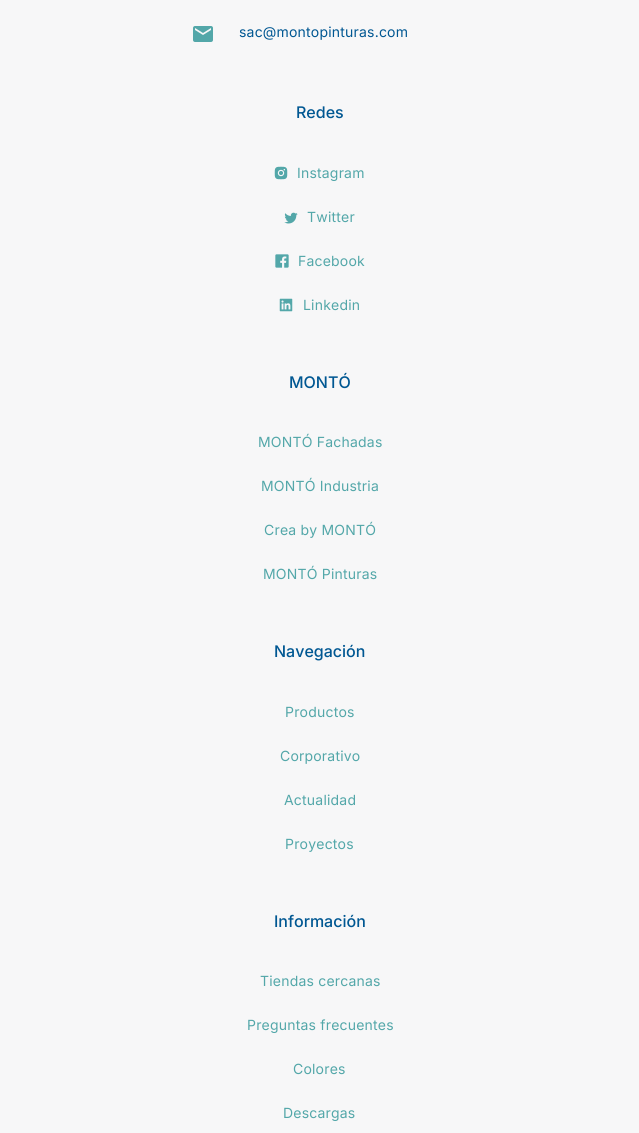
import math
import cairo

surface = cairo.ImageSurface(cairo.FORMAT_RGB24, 639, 1133)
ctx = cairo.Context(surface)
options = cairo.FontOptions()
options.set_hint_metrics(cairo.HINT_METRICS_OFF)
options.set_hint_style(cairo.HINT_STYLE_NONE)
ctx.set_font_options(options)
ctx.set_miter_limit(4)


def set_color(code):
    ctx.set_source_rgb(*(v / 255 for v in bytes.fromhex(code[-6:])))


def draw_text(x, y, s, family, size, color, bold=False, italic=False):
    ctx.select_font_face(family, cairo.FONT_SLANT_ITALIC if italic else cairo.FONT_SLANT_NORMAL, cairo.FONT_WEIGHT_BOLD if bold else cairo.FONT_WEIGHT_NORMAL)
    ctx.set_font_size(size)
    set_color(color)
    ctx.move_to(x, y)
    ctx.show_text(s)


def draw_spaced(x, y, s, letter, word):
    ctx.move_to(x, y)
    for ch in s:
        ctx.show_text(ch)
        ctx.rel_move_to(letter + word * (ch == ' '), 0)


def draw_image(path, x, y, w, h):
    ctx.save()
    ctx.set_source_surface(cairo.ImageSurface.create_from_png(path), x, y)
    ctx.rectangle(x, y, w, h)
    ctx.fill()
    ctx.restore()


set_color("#f7f7f8")
ctx.paint()
draw_image("assets/img1.png", 193, 26, 20, 16)
ctx.select_font_face("Inter")
ctx.set_font_size(14)
set_color("#005792")
draw_spaced(239, 37, "sac@montopinturas.com", 0.2, 0)
draw_text(296, 118, "Redes", "Inter Medium", 16, "#005792")
draw_image("assets/img2.png", 274, 166, 14, 14)
ctx.select_font_face("Inter")
ctx.set_font_size(14)
set_color("#53a7a9")
draw_spaced(297, 178, "Instagram", 0.2, 0)
draw_image("assets/img3.png", 284, 212, 14, 12)
draw_spaced(307, 222, "Twitter", 0.2, 0)
draw_image("assets/img4.png", 275, 254, 14, 14)
draw_spaced(298, 266, "Facebook", 0.2, 0)
draw_image("assets/img5.png", 279, 298, 14, 14)
draw_spaced(303, 310, "Linkedin", 0.2, 0)
draw_text(289, 388, "MONTÓ", "Inter Medium", 16, "#005792")
ctx.select_font_face("Inter")
ctx.set_font_size(14)
set_color("#53a7a9")
draw_spaced(258, 447, "MONTÓ Fachadas", 0.2, 0)
draw_spaced(261, 491, "MONTÓ Industria", 0.2, 0)
draw_spaced(264, 535, "Crea by MONTÓ", 0.2, 0)
draw_spaced(263, 579, "MONTÓ Pinturas", 0.2, 0)
draw_text(274, 657, "Navegación", "Inter Medium", 16, "#005792")
ctx.select_font_face("Inter")
ctx.set_font_size(14)
set_color("#53a7a9")
draw_spaced(285, 717, "Productos", 0.2, 0)
draw_spaced(280, 761, "Corporativo", 0.2, 0)
draw_spaced(284, 805, "Actualidad", 0.2, 0)
draw_spaced(285, 849, "Proyectos", 0.2, 0)
draw_text(274, 927, "Información", "Inter Medium", 16, "#005792")
ctx.select_font_face("Inter")
ctx.set_font_size(14)
set_color("#53a7a9")
draw_spaced(260, 986, "Tiendas cercanas", 0.2, 0)
draw_spaced(247, 1030, "Preguntas frecuentes", 0.2, 0)
draw_spaced(293, 1074, "Colores", 0.2, 0)
draw_spaced(283, 1118, "Descargas", 0.2, 0)
surface.write_to_png("output.png")
